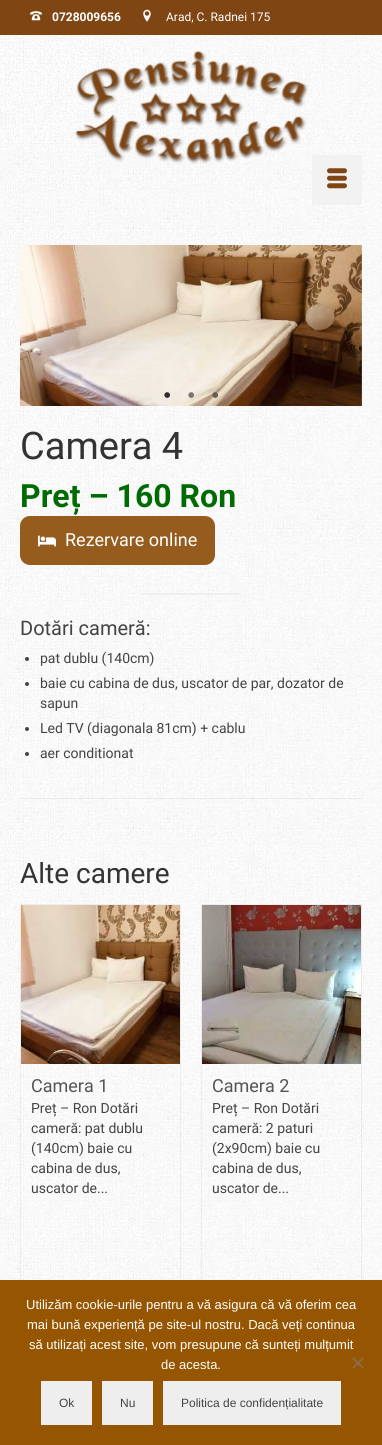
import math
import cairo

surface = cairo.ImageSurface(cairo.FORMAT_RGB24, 382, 1445)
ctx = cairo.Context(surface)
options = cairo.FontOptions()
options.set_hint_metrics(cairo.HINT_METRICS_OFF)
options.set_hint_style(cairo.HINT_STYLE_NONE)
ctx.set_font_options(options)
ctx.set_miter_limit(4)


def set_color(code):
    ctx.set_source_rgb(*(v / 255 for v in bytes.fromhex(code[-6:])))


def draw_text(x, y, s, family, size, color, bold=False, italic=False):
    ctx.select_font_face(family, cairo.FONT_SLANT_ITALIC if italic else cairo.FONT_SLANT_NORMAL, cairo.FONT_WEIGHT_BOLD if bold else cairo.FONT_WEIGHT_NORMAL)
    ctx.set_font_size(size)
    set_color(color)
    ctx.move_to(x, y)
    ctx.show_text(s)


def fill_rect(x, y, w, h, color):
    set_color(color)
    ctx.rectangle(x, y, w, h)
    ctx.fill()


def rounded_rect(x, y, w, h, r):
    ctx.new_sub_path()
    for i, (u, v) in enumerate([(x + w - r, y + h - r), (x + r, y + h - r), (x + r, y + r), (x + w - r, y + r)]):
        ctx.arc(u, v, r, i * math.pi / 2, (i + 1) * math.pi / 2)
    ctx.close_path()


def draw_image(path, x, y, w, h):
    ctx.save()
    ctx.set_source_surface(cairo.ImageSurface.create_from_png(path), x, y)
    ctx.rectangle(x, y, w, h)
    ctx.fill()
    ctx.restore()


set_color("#ffffff")
ctx.paint()
draw_image("assets/img1.png", 0, 35, 382, 170)
fill_rect(0, 0, 382, 35, "#7f4513")
draw_image("assets/img2.png", 30, 11, 12, 10)
draw_text(52, 21, "0728009656", "Roboto", 12, "#ffffff", bold=True)
draw_image("assets/img3.png", 143, 9, 8, 13)
draw_text(166, 21, "Arad, C. Radnei 175", "Roboto", 12, "#ffffff")
draw_image("assets/img4.png", 75, 51, 233, 113)
fill_rect(312, 155, 50, 50, "#f2f2f2")
draw_image("assets/img5.png", 327, 168, 20, 21)
draw_image("assets/img6.png", 0, 205, 382, 1075)
draw_image("assets/img7.png", 20, 245, 342, 161)
draw_text(163, 403, "•", "Liberation Serif", 24, "#312f2d")
draw_text(187, 403, "•", "Liberation Serif", 24, "#7a7570")
draw_text(211, 403, "•", "Liberation Serif", 24, "#665c50")
draw_text(20, 459, "Camera 4", "Roboto", 38, "#333333")
draw_text(20, 507, "Preț – 160 Ron", "Roboto", 32, "#006b02", bold=True)
set_color("#965c1e")
rounded_rect(21, 517, 193, 47, 9)
ctx.fill_preserve()
ctx.stroke()
draw_image("assets/img8.png", 38, 535, 18, 12)
draw_text(65, 546, "Rezervare online", "Roboto", 18, "#ffffff")
fill_rect(141, 593, 100, 2, "#eeeeee")
draw_text(20, 635, "Dotări cameră:", "Roboto", 20, "#444444")
ctx.new_path()
ctx.arc(27, 659, 2, 0, 2 * math.pi)
ctx.fill()
draw_text(40, 663, "pat dublu (140cm)", "Roboto", 14, "#444444")
ctx.new_path()
ctx.arc(27, 684, 2, 0, 2 * math.pi)
ctx.fill()
draw_text(40, 688, "baie cu cabina de dus, uscator de par, dozator de", "Roboto", 14, "#444444")
draw_text(40, 708, "sapun", "Roboto", 14, "#444444")
ctx.new_path()
ctx.arc(27, 729, 2, 0, 2 * math.pi)
ctx.fill()
draw_text(40, 733, "Led TV (diagonala 81cm) + cablu", "Roboto", 14, "#444444")
ctx.new_path()
ctx.arc(27, 754, 2, 0, 2 * math.pi)
ctx.fill()
draw_text(40, 758, "aer conditionat", "Roboto", 14, "#444444")
ctx.set_source_rgba(0, 0, 0, 0.05)
ctx.rectangle(20, 798, 342, 1)
ctx.fill()
draw_text(20, 883, "Alte camere", "Roboto", 28, "#333333")
ctx.rectangle(20.5, 904.5, 160, 409)
ctx.set_source_rgba(0, 0, 0, 0.05)
ctx.set_line_width(1)
ctx.stroke()
draw_image("assets/img9.png", 21, 905, 159, 159)
draw_text(31, 1092, "Camera 1", "Roboto", 18, "#555555")
draw_text(31, 1113, "Preț – Ron Dotări", "Roboto", 14, "#444444")
draw_text(31, 1133, "cameră: pat dublu", "Roboto", 14, "#444444")
draw_text(31, 1153, "(140cm) baie cu", "Roboto", 14, "#444444")
draw_text(31, 1173, "cabina de dus,", "Roboto", 14, "#444444")
draw_text(31, 1193, "uscator de...", "Roboto", 14, "#444444")
ctx.rectangle(201.5, 904.5, 160, 409)
ctx.set_source_rgba(0, 0, 0, 0.05)
ctx.stroke()
draw_image("assets/img10.png", 202, 905, 159, 159)
draw_text(212, 1092, "Camera 2", "Roboto", 18, "#555555")
draw_text(212, 1113, "Preț – Ron Dotări", "Roboto", 14, "#444444")
draw_text(212, 1133, "cameră: 2 paturi", "Roboto", 14, "#444444")
draw_text(212, 1153, "(2x90cm) baie cu", "Roboto", 14, "#444444")
draw_text(212, 1173, "cabina de dus,", "Roboto", 14, "#444444")
draw_text(212, 1193, "uscator de...", "Roboto", 14, "#444444")
fill_rect(0, 1280, 382, 165, "#965500")
draw_text(26, 1309, "Utilizăm cookie-urile pentru a vă asigura că vă oferim cea", "Liberation Sans", 13, "#ffffff")
draw_text(27, 1329, "mai bună experiență pe site-ul nostru. Dacă veți continua", "Liberation Sans", 13, "#ffffff")
draw_text(29, 1349, "să utilizați acest site, vom presupune că sunteți mulțumit", "Liberation Sans", 13, "#ffffff")
draw_text(161, 1369, "de acesta.", "Liberation Sans", 13, "#ffffff")
set_color("#8b6b40")
ctx.new_path()
ctx.move_to(362.5, 1357)
ctx.line_to(364, 1358.5)
ctx.line_to(353.5, 1369)
ctx.line_to(352, 1367.5)
ctx.close_path()
ctx.fill()
ctx.new_path()
ctx.move_to(352, 1358.5)
ctx.line_to(353.5, 1357)
ctx.line_to(364, 1367.5)
ctx.line_to(362.5, 1369)
ctx.close_path()
ctx.fill()
fill_rect(41, 1381, 51, 44, "#eeeeee")
draw_text(59, 1407, "Ok", "Liberation Sans", 12, "#444444")
fill_rect(102, 1381, 51, 44, "#eeeeee")
draw_text(120, 1407, "Nu", "Liberation Sans", 12, "#444444")
fill_rect(163, 1381, 178, 44, "#eeeeee")
draw_text(181, 1407, "Politica de confidențialitate", "Liberation Sans", 12, "#444444")
surface.write_to_png("output.png")
